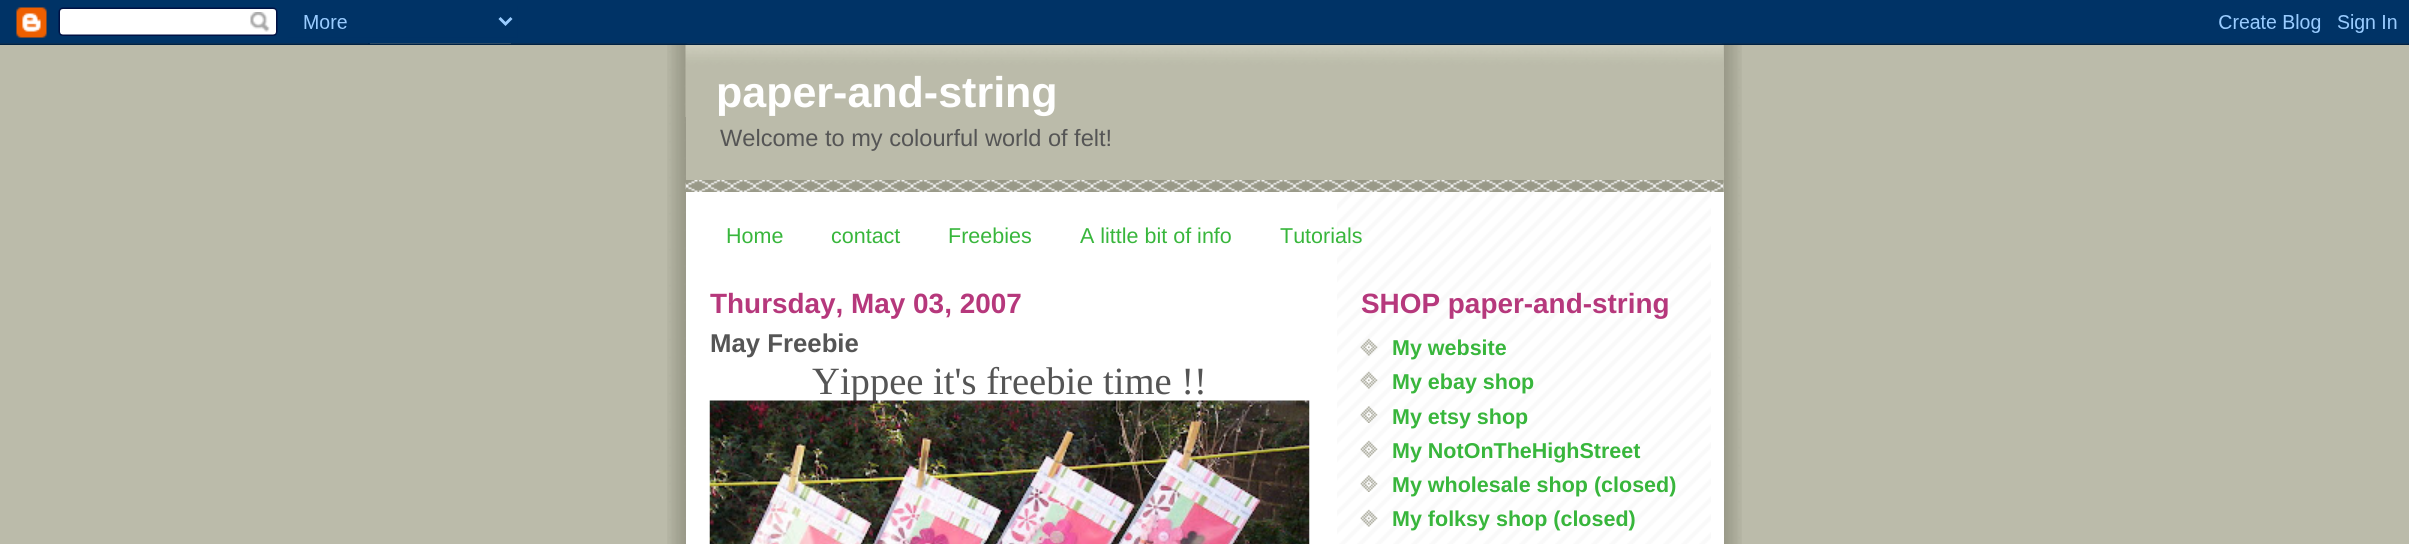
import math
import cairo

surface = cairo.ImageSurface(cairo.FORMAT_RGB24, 2409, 544)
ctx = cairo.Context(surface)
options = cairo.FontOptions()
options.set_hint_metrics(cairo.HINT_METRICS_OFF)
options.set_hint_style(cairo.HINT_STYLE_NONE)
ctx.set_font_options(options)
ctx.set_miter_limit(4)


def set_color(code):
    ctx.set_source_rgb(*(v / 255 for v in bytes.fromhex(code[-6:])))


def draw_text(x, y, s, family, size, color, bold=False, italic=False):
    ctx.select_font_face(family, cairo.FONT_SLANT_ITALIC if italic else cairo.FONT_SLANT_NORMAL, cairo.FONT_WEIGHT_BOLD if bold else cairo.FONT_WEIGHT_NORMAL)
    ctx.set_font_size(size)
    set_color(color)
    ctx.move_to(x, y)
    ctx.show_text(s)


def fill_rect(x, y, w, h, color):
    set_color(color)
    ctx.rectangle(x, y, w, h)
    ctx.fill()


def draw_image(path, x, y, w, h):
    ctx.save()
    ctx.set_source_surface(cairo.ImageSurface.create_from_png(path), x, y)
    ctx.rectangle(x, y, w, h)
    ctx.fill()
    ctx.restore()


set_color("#bbbbaa")
ctx.paint()
draw_image("assets/img1.png", 667, 43, 1075, 501)
draw_image("assets/img2.png", 0, 0, 2409, 45)
fill_rect(686, 192, 1038, 352, "#ffffff")
draw_image("assets/img3.png", 1337, 192, 374, 352)
fill_rect(686, 45, 1038, 147, "#bbbbaa")
draw_image("assets/img4.png", 685, 180, 1039, 12)
draw_image("assets/img5.png", 685, 45, 1039, 72)
draw_text(716, 107, "paper-and-string", "Liberation Sans", 43, "#ffffff", bold=True)
draw_text(720, 146, "Welcome to my colourful world of felt!", "Liberation Sans", 23.6, "#555555")
draw_text(726, 243, "Home", "Liberation Sans", 21.5, "#38b63c")
draw_text(831, 243, "contact", "Liberation Sans", 21.5, "#38b63c")
draw_text(948, 243, "Freebies", "Liberation Sans", 21.5, "#38b63c")
draw_text(1080, 243, "A little bit of info", "Liberation Sans", 21.5, "#38b63c")
draw_text(1280, 243, "Tutorials", "Liberation Sans", 21.5, "#38b63c")
ctx.save()
ctx.rectangle(710, 269, 600, 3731)
ctx.clip()
draw_text(710, 313, "Thursday, May 03, 2007", "Liberation Sans", 27.9, "#b6387c", bold=True)
ctx.restore()
draw_text(710, 352, "May Freebie", "Liberation Sans", 25.75, "#555555", bold=True)
draw_text(812, 394, "Yippee it's freebie time !!", "Liberation Serif", 38.6, "#555555")
draw_image("assets/img6.png", 709, 400, 601, 144)
draw_text(1361, 313, "SHOP paper-and-string", "Liberation Sans", 27.9, "#b6387c", bold=True)
draw_image("assets/img7.png", 1360, 338, 18, 18)
draw_text(1392, 355, "My website", "Liberation Sans", 21.5, "#38b63c", bold=True)
draw_image("assets/img8.png", 1360, 371, 18, 18)
draw_text(1392, 389, "My ebay shop", "Liberation Sans", 21.5, "#38b63c", bold=True)
draw_image("assets/img9.png", 1360, 406, 18, 17)
draw_text(1392, 424, "My etsy shop", "Liberation Sans", 21.5, "#38b63c", bold=True)
draw_image("assets/img10.png", 1360, 440, 18, 18)
draw_text(1392, 458, "My NotOnTheHighStreet", "Liberation Sans", 21.5, "#38b63c", bold=True)
draw_image("assets/img11.png", 1360, 475, 18, 17)
draw_text(1392, 492, "My wholesale shop (closed)", "Liberation Sans", 21.5, "#38b63c", bold=True)
draw_image("assets/img12.png", 1360, 509, 18, 18)
draw_text(1392, 526, "My folksy shop (closed)", "Liberation Sans", 21.5, "#38b63c", bold=True)
surface.write_to_png("output.png")
